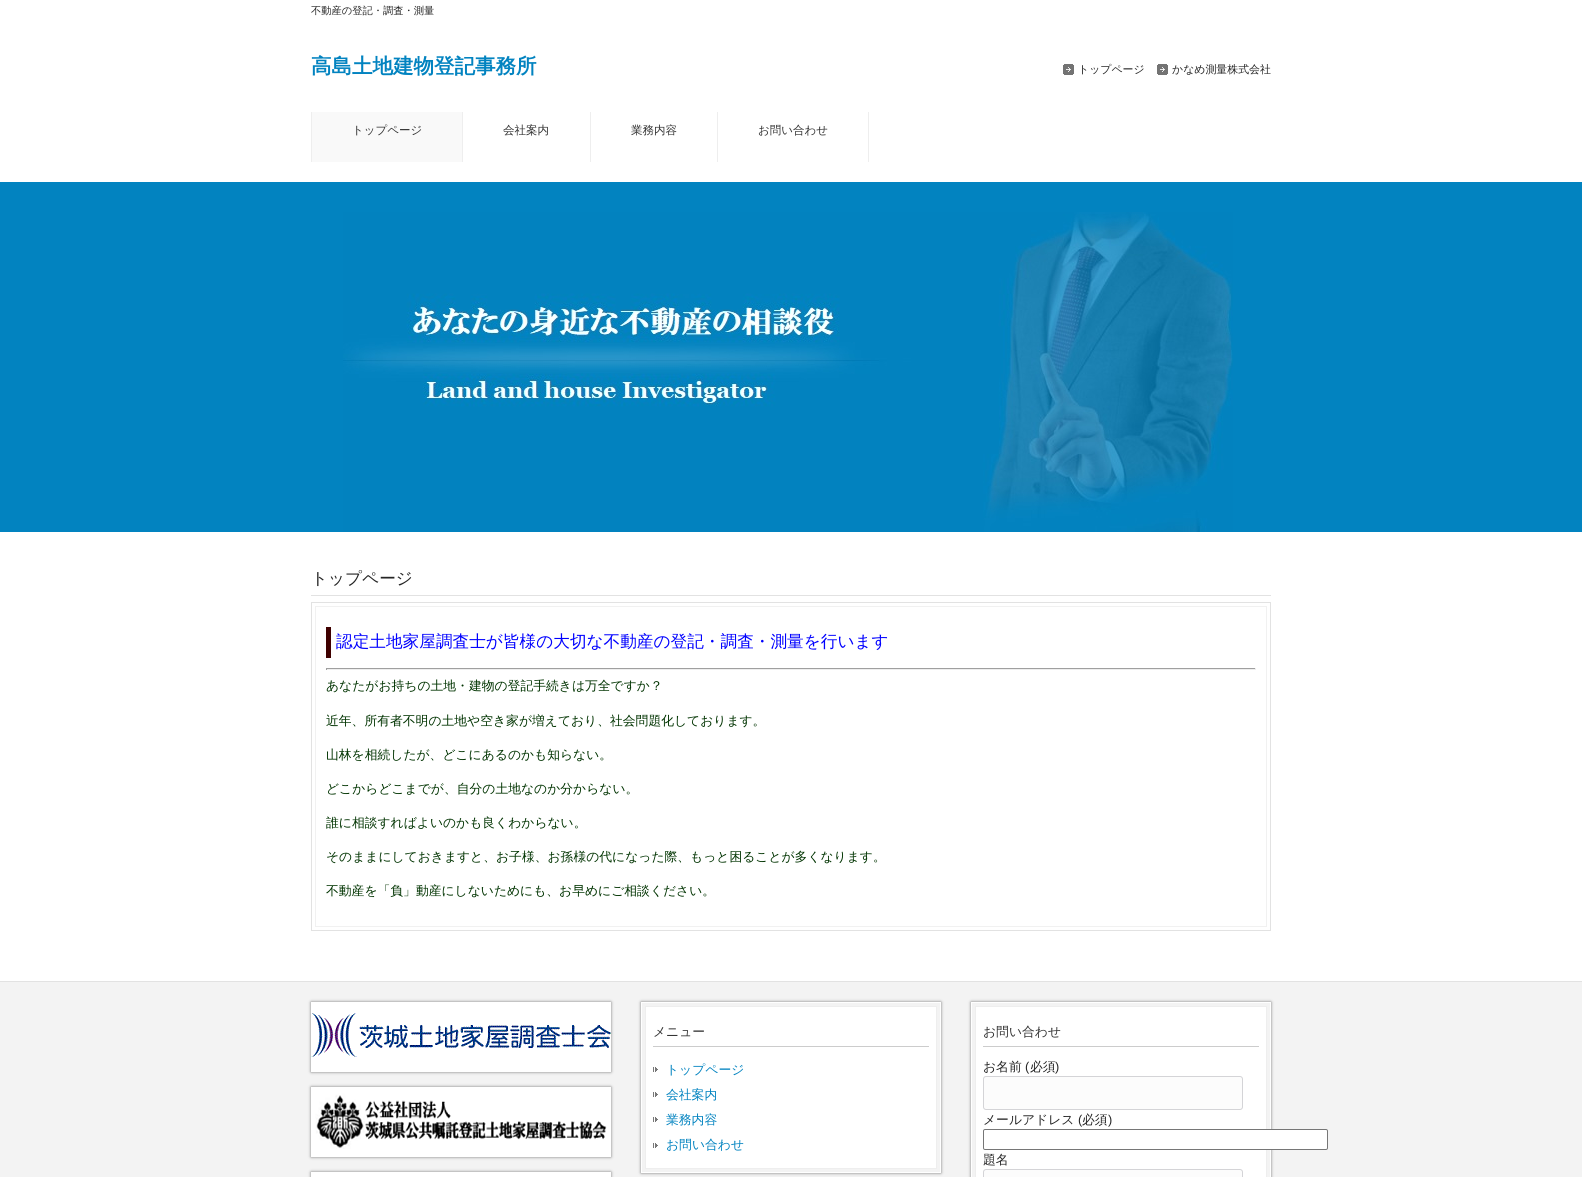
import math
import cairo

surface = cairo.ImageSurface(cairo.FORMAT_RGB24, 1582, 1177)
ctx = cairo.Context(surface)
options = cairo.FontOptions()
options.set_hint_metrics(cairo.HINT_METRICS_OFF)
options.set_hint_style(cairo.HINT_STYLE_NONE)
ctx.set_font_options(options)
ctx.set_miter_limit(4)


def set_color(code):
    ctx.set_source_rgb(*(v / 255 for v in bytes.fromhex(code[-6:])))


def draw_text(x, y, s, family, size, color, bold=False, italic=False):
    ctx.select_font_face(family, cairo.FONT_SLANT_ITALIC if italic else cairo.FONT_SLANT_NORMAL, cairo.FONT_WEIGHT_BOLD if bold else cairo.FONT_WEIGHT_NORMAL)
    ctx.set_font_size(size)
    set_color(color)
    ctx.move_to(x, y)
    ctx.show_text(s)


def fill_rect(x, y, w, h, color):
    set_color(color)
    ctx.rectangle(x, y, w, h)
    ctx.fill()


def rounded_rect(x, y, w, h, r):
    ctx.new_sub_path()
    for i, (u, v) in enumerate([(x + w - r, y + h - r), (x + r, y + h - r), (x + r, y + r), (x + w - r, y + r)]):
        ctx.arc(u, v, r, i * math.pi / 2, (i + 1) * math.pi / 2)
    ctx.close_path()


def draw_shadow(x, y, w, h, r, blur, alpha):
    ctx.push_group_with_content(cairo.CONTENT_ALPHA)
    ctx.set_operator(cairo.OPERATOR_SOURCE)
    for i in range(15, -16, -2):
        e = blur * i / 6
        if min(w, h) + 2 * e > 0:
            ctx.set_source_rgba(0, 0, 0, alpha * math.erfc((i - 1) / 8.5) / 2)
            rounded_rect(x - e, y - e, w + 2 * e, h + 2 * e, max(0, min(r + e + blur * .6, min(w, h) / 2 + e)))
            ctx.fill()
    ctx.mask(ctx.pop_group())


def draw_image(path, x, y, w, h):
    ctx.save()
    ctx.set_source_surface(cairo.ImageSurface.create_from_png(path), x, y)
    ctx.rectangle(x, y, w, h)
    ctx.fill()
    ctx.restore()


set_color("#ffffff")
ctx.paint()
draw_text(311, 14, "不動産の登記・調査・測量", "WenQuanYi Zen Hei Medium", 10.25, "#252525")
draw_text(311, 73, "高島土地建物登記事務所", "WenQuanYi Zen Hei", 20.5, "#0283c0", bold=True)
draw_image("assets/img1.png", 1063, 64, 11, 11)
draw_text(1078, 73, "トップページ", "WenQuanYi Zen Hei Medium", 10.9, "#252525")
draw_image("assets/img1.png", 1157, 64, 11, 11)
draw_text(1172, 73, "かなめ測量株式会社", "WenQuanYi Zen Hei Medium", 10.9, "#252525")
fill_rect(312, 112, 150, 50, "#f9f9f9")
fill_rect(462, 112, 1, 50, "#eeeeee")
fill_rect(311, 112, 1, 50, "#eeeeee")
draw_text(352, 134, "トップページ", "WenQuanYi Zen Hei Medium", 11.5, "#333333")
fill_rect(590, 112, 1, 50, "#eeeeee")
draw_text(503, 134, "会社案内", "WenQuanYi Zen Hei Medium", 11.5, "#333333")
fill_rect(717, 112, 1, 50, "#eeeeee")
draw_text(631, 134, "業務内容", "WenQuanYi Zen Hei Medium", 11.5, "#333333")
fill_rect(868, 112, 1, 50, "#eeeeee")
draw_text(758, 134, "お問い合わせ", "WenQuanYi Zen Hei Medium", 11.5, "#333333")
fill_rect(0, 182, 1582, 350, "#0283c0")
draw_image("assets/img2.png", 343, 212, 890, 320)
fill_rect(311, 595, 960, 1, "#e2e2e2")
draw_text(311, 584, "トップページ", "WenQuanYi Zen Hei Medium", 16.65, "#252525")
ctx.rectangle(311.5, 602.5, 959, 328)
set_color("#e2e2e2")
ctx.set_line_width(1)
ctx.stroke()
ctx.rectangle(315.5, 606.5, 951, 320)
set_color("#f1f1f1")
ctx.stroke()
fill_rect(326, 627, 5, 31, "#3f0000")
draw_text(336, 647, "認定土地家屋調査士が皆様の大切な不動産の登記・調査・測量を行います", "WenQuanYi Zen Hei Medium", 16.65, "#0000ff")
fill_rect(326, 668, 930, 1, "#9f9f9f")
fill_rect(1255, 668, 1, 2, "#eeeeee")
fill_rect(326, 669, 930, 1, "#eeeeee")
fill_rect(326, 668, 1, 2, "#9f9f9f")
draw_text(326, 690, "あなたがお持ちの土地・建物の登記手続きは万全ですか？", "WenQuanYi Zen Hei Medium", 12.8, "#003300")
draw_text(326, 725, "近年、所有者不明の土地や空き家が増えており、社会問題化しております。", "WenQuanYi Zen Hei Medium", 12.8, "#003300")
draw_text(326, 759, "山林を相続したが、どこにあるのかも知らない。", "WenQuanYi Zen Hei Medium", 12.8, "#003300")
draw_text(326, 793, "どこからどこまでが、自分の土地なのか分からない。", "WenQuanYi Zen Hei Medium", 12.8, "#003300")
draw_text(326, 827, "誰に相談すればよいのかも良くわからない。", "WenQuanYi Zen Hei Medium", 12.8, "#003300")
draw_text(326, 861, "そのままにしておきますと、お子様、お孫様の代になった際、もっと困ることが多くなります。", "WenQuanYi Zen Hei Medium", 12.8, "#003300")
draw_text(326, 895, "不動産を「負」動産にしないためにも、お早めにご相談ください。", "WenQuanYi Zen Hei Medium", 12.8, "#003300")
fill_rect(0, 982, 1582, 195, "#f3f3f3")
fill_rect(0, 981, 1582, 1, "#e2e2e2")
set_color("#000000")
draw_shadow(311, 1002, 300, 70, 0, 1.5, 0.5)
draw_image("assets/img3.png", 311, 1002, 300, 70)
draw_shadow(311, 1087, 300, 70, 0, 1.5, 0.5)
draw_image("assets/img4.png", 311, 1087, 300, 70)
draw_shadow(311, 1172, 300, 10, 0, 1.5, 0.5)
fill_rect(311, 1172, 300, 5, "#ffffff")
ctx.save()
ctx.set_fill_rule(cairo.FILL_RULE_EVEN_ODD)
ctx.new_path()
ctx.move_to(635, 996)
ctx.line_to(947, 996)
ctx.line_to(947, 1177)
ctx.line_to(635, 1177)
ctx.close_path()
ctx.move_to(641, 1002)
ctx.line_to(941, 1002)
ctx.line_to(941, 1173)
ctx.line_to(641, 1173)
ctx.close_path()
ctx.clip()
set_color("#000000")
draw_shadow(641, 1002, 300, 171, 0, 1.5, 0.5)
ctx.restore()
ctx.rectangle(641.5, 1002.5, 299, 170)
ctx.stroke()
ctx.rectangle(645.5, 1006.5, 291, 162)
ctx.fill_preserve()
set_color("#eeeeee")
ctx.stroke()
fill_rect(653, 1046, 276, 1, "#cccccc")
draw_text(653, 1036, "メニュー", "WenQuanYi Zen Hei Medium", 12.8, "#333333")
draw_image("assets/img5.png", 653, 1067, 5, 5)
draw_text(666, 1074, "トップページ", "WenQuanYi Zen Hei Medium", 12.8, "#0283c0")
draw_image("assets/img5.png", 653, 1092, 5, 5)
draw_text(666, 1099, "会社案内", "WenQuanYi Zen Hei Medium", 12.8, "#0283c0")
draw_image("assets/img5.png", 653, 1117, 5, 5)
draw_text(666, 1124, "業務内容", "WenQuanYi Zen Hei Medium", 12.8, "#0283c0")
draw_image("assets/img5.png", 653, 1143, 5, 5)
draw_text(666, 1149, "お問い合わせ", "WenQuanYi Zen Hei Medium", 12.8, "#0283c0")
ctx.save()
ctx.set_fill_rule(cairo.FILL_RULE_EVEN_ODD)
ctx.new_path()
ctx.move_to(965, 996)
ctx.line_to(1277, 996)
ctx.line_to(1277, 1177)
ctx.line_to(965, 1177)
ctx.close_path()
ctx.move_to(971, 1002)
ctx.line_to(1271, 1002)
ctx.line_to(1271, 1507)
ctx.line_to(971, 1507)
ctx.close_path()
ctx.clip()
set_color("#000000")
draw_shadow(971, 1002, 300, 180, 0, 1.5, 0.5)
ctx.restore()
ctx.rectangle(971.5, 1002.5, 299, 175)
set_color("#ffffff")
ctx.stroke()
ctx.rectangle(975.5, 1006.5, 291, 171)
ctx.fill_preserve()
set_color("#eeeeee")
ctx.stroke()
fill_rect(983, 1046, 276, 1, "#cccccc")
draw_text(983, 1036, "お問い合わせ", "WenQuanYi Zen Hei Medium", 12.8, "#333333")
draw_text(983, 1071, "お名前", "WenQuanYi Zen Hei Medium", 12.8, "#252525")
draw_text(1025, 1071, "(", "Liberation Sans", 12.8, "#252525")
draw_text(1030, 1071, "必須", "WenQuanYi Zen Hei Medium", 12.8, "#252525")
draw_text(1055, 1071, ")", "Liberation Sans", 12.8, "#252525")
set_color("#fcfcfc")
rounded_rect(983.5, 1076.5, 259, 33, 2.5)
ctx.fill_preserve()
set_color("#d4d4d7")
ctx.stroke()
draw_text(983, 1124, "メールアドレス", "WenQuanYi Zen Hei Medium", 12.8, "#252525")
draw_text(1078, 1124, "(", "Liberation Sans", 12.8, "#252525")
draw_text(1082, 1124, "必須", "WenQuanYi Zen Hei Medium", 12.8, "#252525")
draw_text(1108, 1124, ")", "Liberation Sans", 12.8, "#252525")
set_color("#ffffff")
rounded_rect(983.5, 1129.5, 344, 20, 1.5)
ctx.fill_preserve()
set_color("#767676")
ctx.stroke()
draw_text(983, 1164, "題名", "WenQuanYi Zen Hei Medium", 12.8, "#252525")
set_color("#fcfcfc")
rounded_rect(983.5, 1169.5, 259, 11, 2.5)
ctx.fill_preserve()
set_color("#d4d4d7")
ctx.stroke()
surface.write_to_png("output.png")
